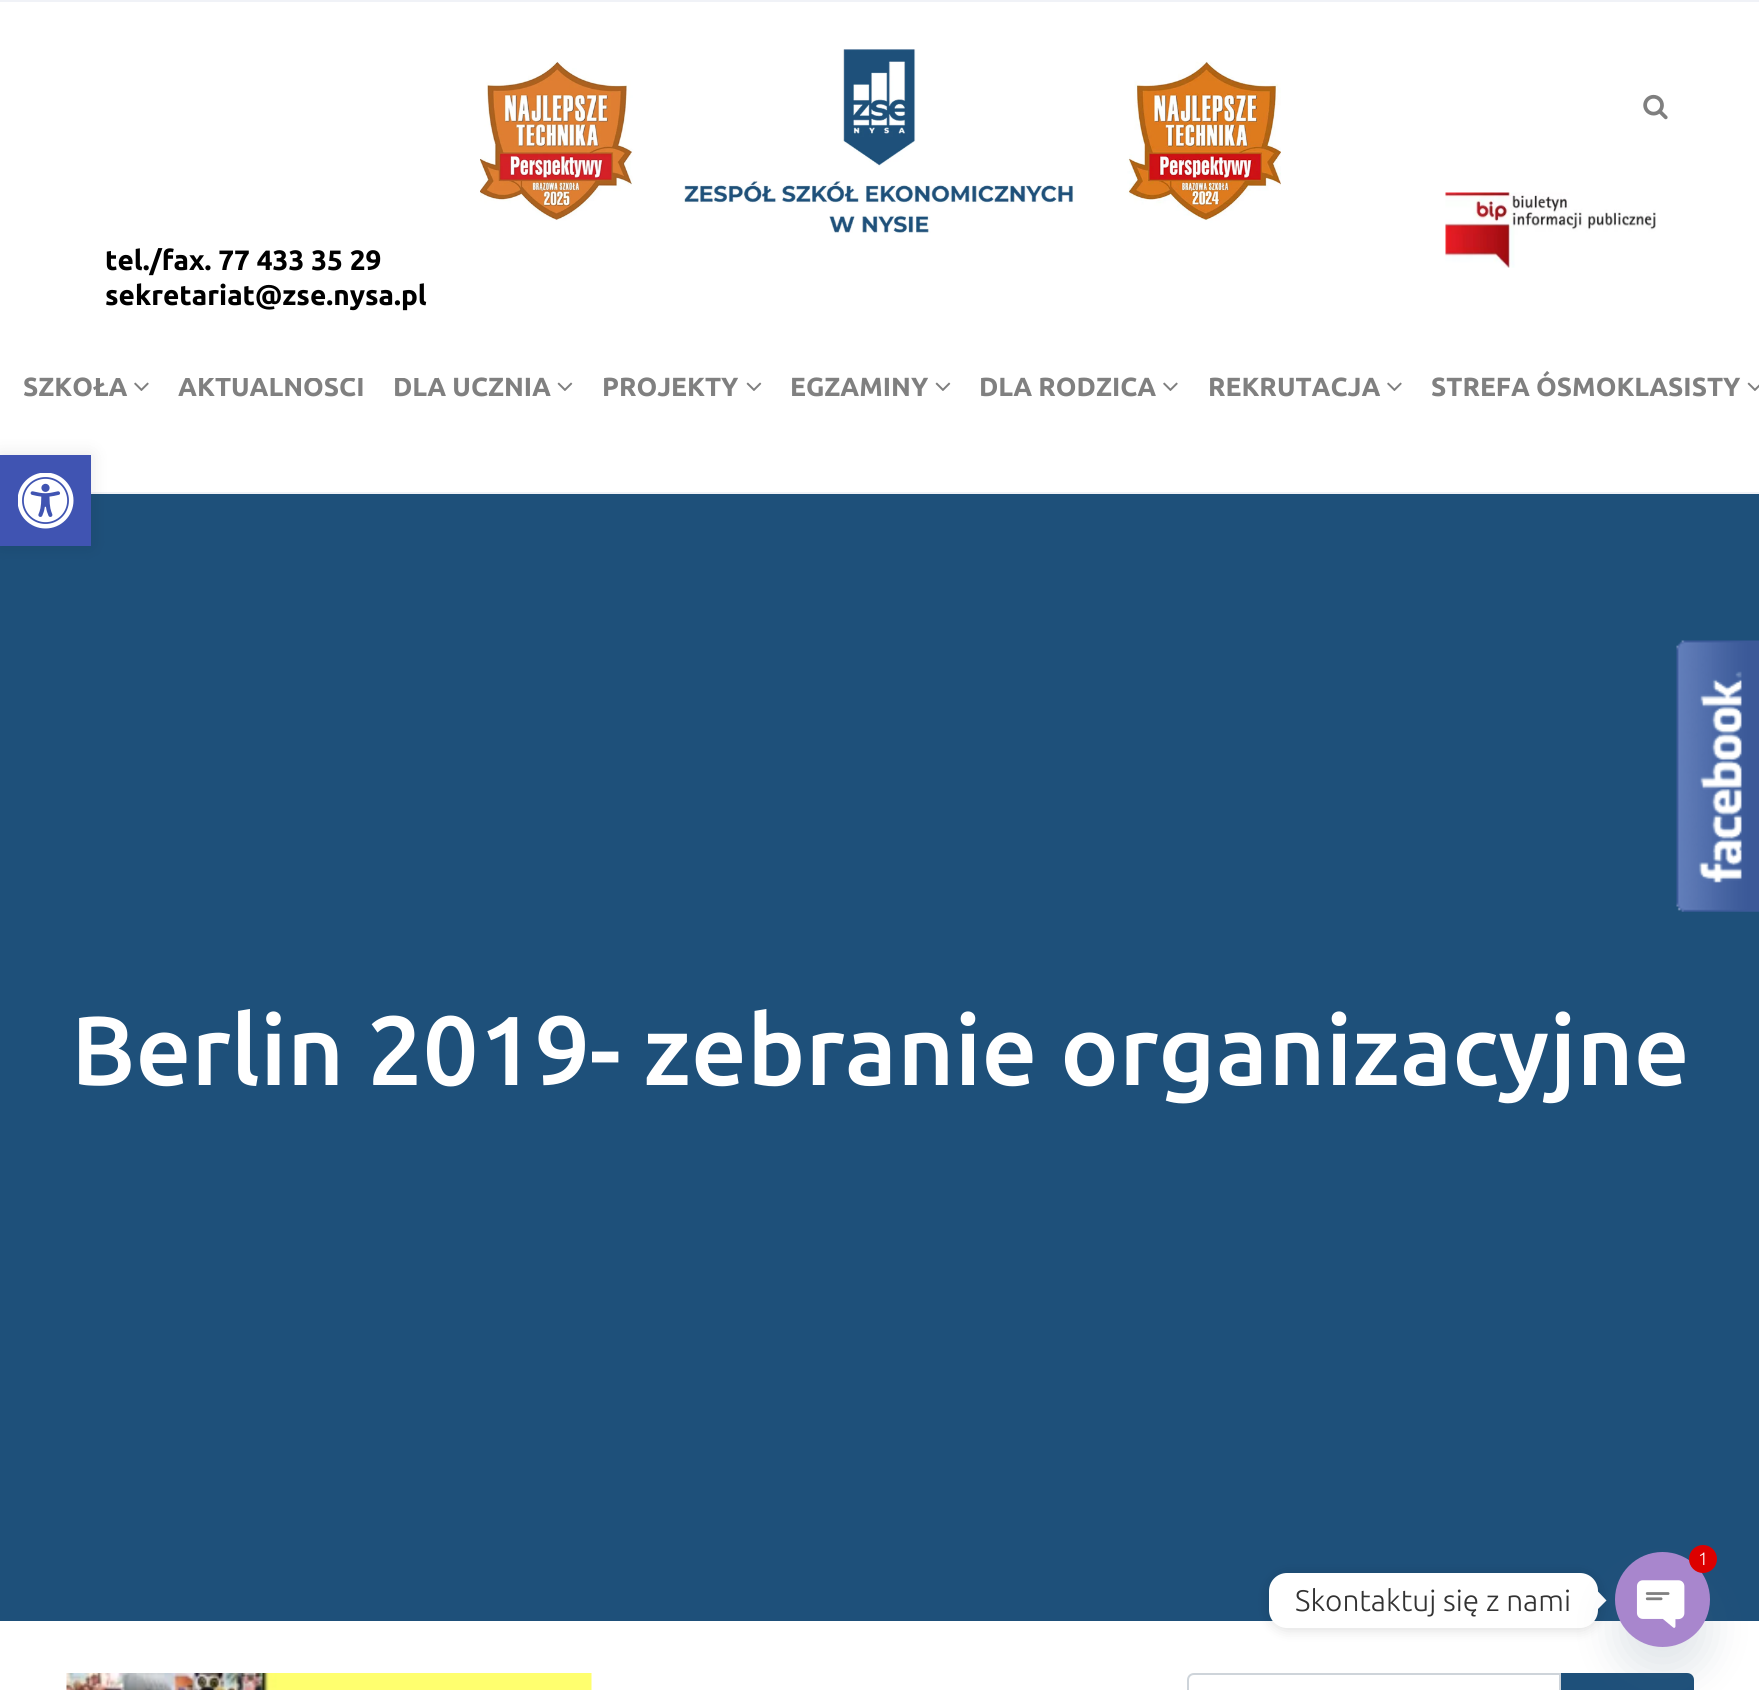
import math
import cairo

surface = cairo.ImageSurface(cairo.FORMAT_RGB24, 1759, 1690)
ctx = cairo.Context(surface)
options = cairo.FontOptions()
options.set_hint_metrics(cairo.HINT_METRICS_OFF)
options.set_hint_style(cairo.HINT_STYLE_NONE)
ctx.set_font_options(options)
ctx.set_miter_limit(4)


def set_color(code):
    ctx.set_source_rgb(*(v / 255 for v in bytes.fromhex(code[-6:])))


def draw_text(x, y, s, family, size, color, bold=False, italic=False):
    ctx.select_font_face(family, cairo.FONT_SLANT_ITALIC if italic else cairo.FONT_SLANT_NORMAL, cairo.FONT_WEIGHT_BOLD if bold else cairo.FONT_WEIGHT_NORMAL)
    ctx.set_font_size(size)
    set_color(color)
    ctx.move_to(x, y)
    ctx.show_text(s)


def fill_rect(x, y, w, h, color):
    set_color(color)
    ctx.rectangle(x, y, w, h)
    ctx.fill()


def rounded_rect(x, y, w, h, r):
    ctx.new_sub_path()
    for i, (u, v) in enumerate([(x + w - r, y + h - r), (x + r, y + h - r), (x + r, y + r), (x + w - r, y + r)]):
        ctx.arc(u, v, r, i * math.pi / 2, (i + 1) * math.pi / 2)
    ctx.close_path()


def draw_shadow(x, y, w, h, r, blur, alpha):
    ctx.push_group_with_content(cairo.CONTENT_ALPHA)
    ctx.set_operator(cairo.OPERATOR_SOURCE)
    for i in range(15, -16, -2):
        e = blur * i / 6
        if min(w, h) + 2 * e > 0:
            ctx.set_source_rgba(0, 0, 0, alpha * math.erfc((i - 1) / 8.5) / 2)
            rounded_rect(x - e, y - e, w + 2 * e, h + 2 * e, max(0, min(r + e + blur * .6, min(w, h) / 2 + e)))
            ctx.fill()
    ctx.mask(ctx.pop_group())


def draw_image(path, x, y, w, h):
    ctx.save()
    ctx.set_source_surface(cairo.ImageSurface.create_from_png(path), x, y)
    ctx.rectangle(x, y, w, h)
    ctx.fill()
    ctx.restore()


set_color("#ffffff")
ctx.paint()
draw_image("assets/img1.png", 1445, 192, 211, 76)
draw_text(23, 396, "SZKOŁA", "Ubuntu", 26.25, "#808080", bold=True)
draw_text(178, 396, "AKTUALNOŚCI", "Ubuntu", 26.25, "#808080", bold=True)
draw_text(393, 396, "DLA UCZNIA", "Ubuntu", 26.25, "#808080", bold=True)
fill_rect(95, 370, 343, 8, "#ffffff")
draw_text(105, 270, "tel./fax. 77 433 35 29", "Ubuntu", 28, "#000000", bold=True)
draw_text(105, 305, "sekretariat@zse.nysa.pl", "Ubuntu", 28, "#000000", bold=True)
fill_rect(0, 0, 1759, 2, "#f0f2f7")
fill_rect(91, 492, 1668, 2, "#f0f2f7")
draw_image("assets/img2.png", 480, 49, 801, 184)
draw_image("assets/img3.png", 1643, 94, 25, 26)
draw_image("assets/img4.png", 134, 382, 15, 9)
draw_image("assets/img5.png", 557, 382, 16, 9)
draw_text(602, 396, "PROJEKTY", "Ubuntu", 26.25, "#808080", bold=True)
draw_image("assets/img5.png", 746, 382, 16, 9)
draw_text(790, 396, "EGZAMINY", "Ubuntu", 26.25, "#808080", bold=True)
draw_image("assets/img5.png", 935, 382, 16, 9)
draw_text(979, 396, "DLA RODZICA", "Ubuntu", 26.25, "#808080", bold=True)
draw_image("assets/img4.png", 1163, 382, 15, 9)
draw_text(1208, 396, "REKRUTACJA", "Ubuntu", 26.25, "#808080", bold=True)
draw_image("assets/img4.png", 1387, 382, 15, 9)
draw_text(1431, 396, "STREFA ÓSMOKLASISTY", "Ubuntu", 26.25, "#808080", bold=True)
draw_image("assets/img6.png", 1747, 382, 12, 9)
fill_rect(0, 494, 1759, 1127, "#1e507a")
draw_text(71, 1085, "Berlin 2019- zebranie organizacyjne", "Ubuntu Medium", 98, "#ffffff")
draw_image("assets/img7.png", 66, 1673, 526, 17)
ctx.new_path()
ctx.move_to(1194, 1674)
ctx.line_to(1560, 1674)
ctx.line_to(1560, 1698)
ctx.line_to(1194, 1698)
ctx.curve_to(1190.5, 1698, 1188, 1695.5, 1188, 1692)
ctx.line_to(1188, 1680)
ctx.curve_to(1188, 1676.5, 1190.5, 1674, 1194, 1674)
ctx.close_path()
set_color("#ced4da")
ctx.stroke()
set_color("#1e507a")
ctx.new_path()
ctx.move_to(1562, 1674)
ctx.line_to(1687, 1674)
ctx.curve_to(1690.5, 1674, 1693, 1676.5, 1693, 1680)
ctx.line_to(1693, 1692)
ctx.curve_to(1693, 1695.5, 1690.5, 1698, 1687, 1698)
ctx.line_to(1562, 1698)
ctx.close_path()
ctx.fill_preserve()
ctx.stroke()
set_color("#000000")
draw_shadow(0, 455, 91, 91, 0, 9, 0.1)
fill_rect(0, 455, 91, 91, "#4054b2")
draw_image("assets/img8.png", 18, 473, 56, 56)
draw_image("assets/img9.png", 1676, 640, 83, 272)
set_color("#000000")
draw_shadow(1269, 1575, 329, 54, 18, 7, 0.15)
set_color("#ffffff")
rounded_rect(1269, 1573, 329, 55, 18)
ctx.fill()
ctx.new_path()
ctx.move_to(1598, 1609)
ctx.line_to(1598, 1591.5)
ctx.line_to(1606.5, 1600.5)
ctx.close_path()
ctx.fill()
set_color("#49687e")
draw_shadow(1615, 1580, 95, 95, 47.5, 21, 0.16)
set_color("#a886cd")
ctx.arc(1662.5, 1599.5, 47.5, 0, 2 * math.pi)
ctx.fill()
draw_image("assets/img10.png", 1636, 1580, 49, 48)
set_color("#dd0000")
ctx.arc(1703, 1559, 14, 0, 2 * math.pi)
ctx.fill()
draw_text(1698, 1565, "1", "Ubuntu Light", 18, "#ffffff")
draw_text(1295, 1611, "Skontaktuj się z nami", "Ubuntu Light", 29.75, "#333333")
surface.write_to_png("output.png")
